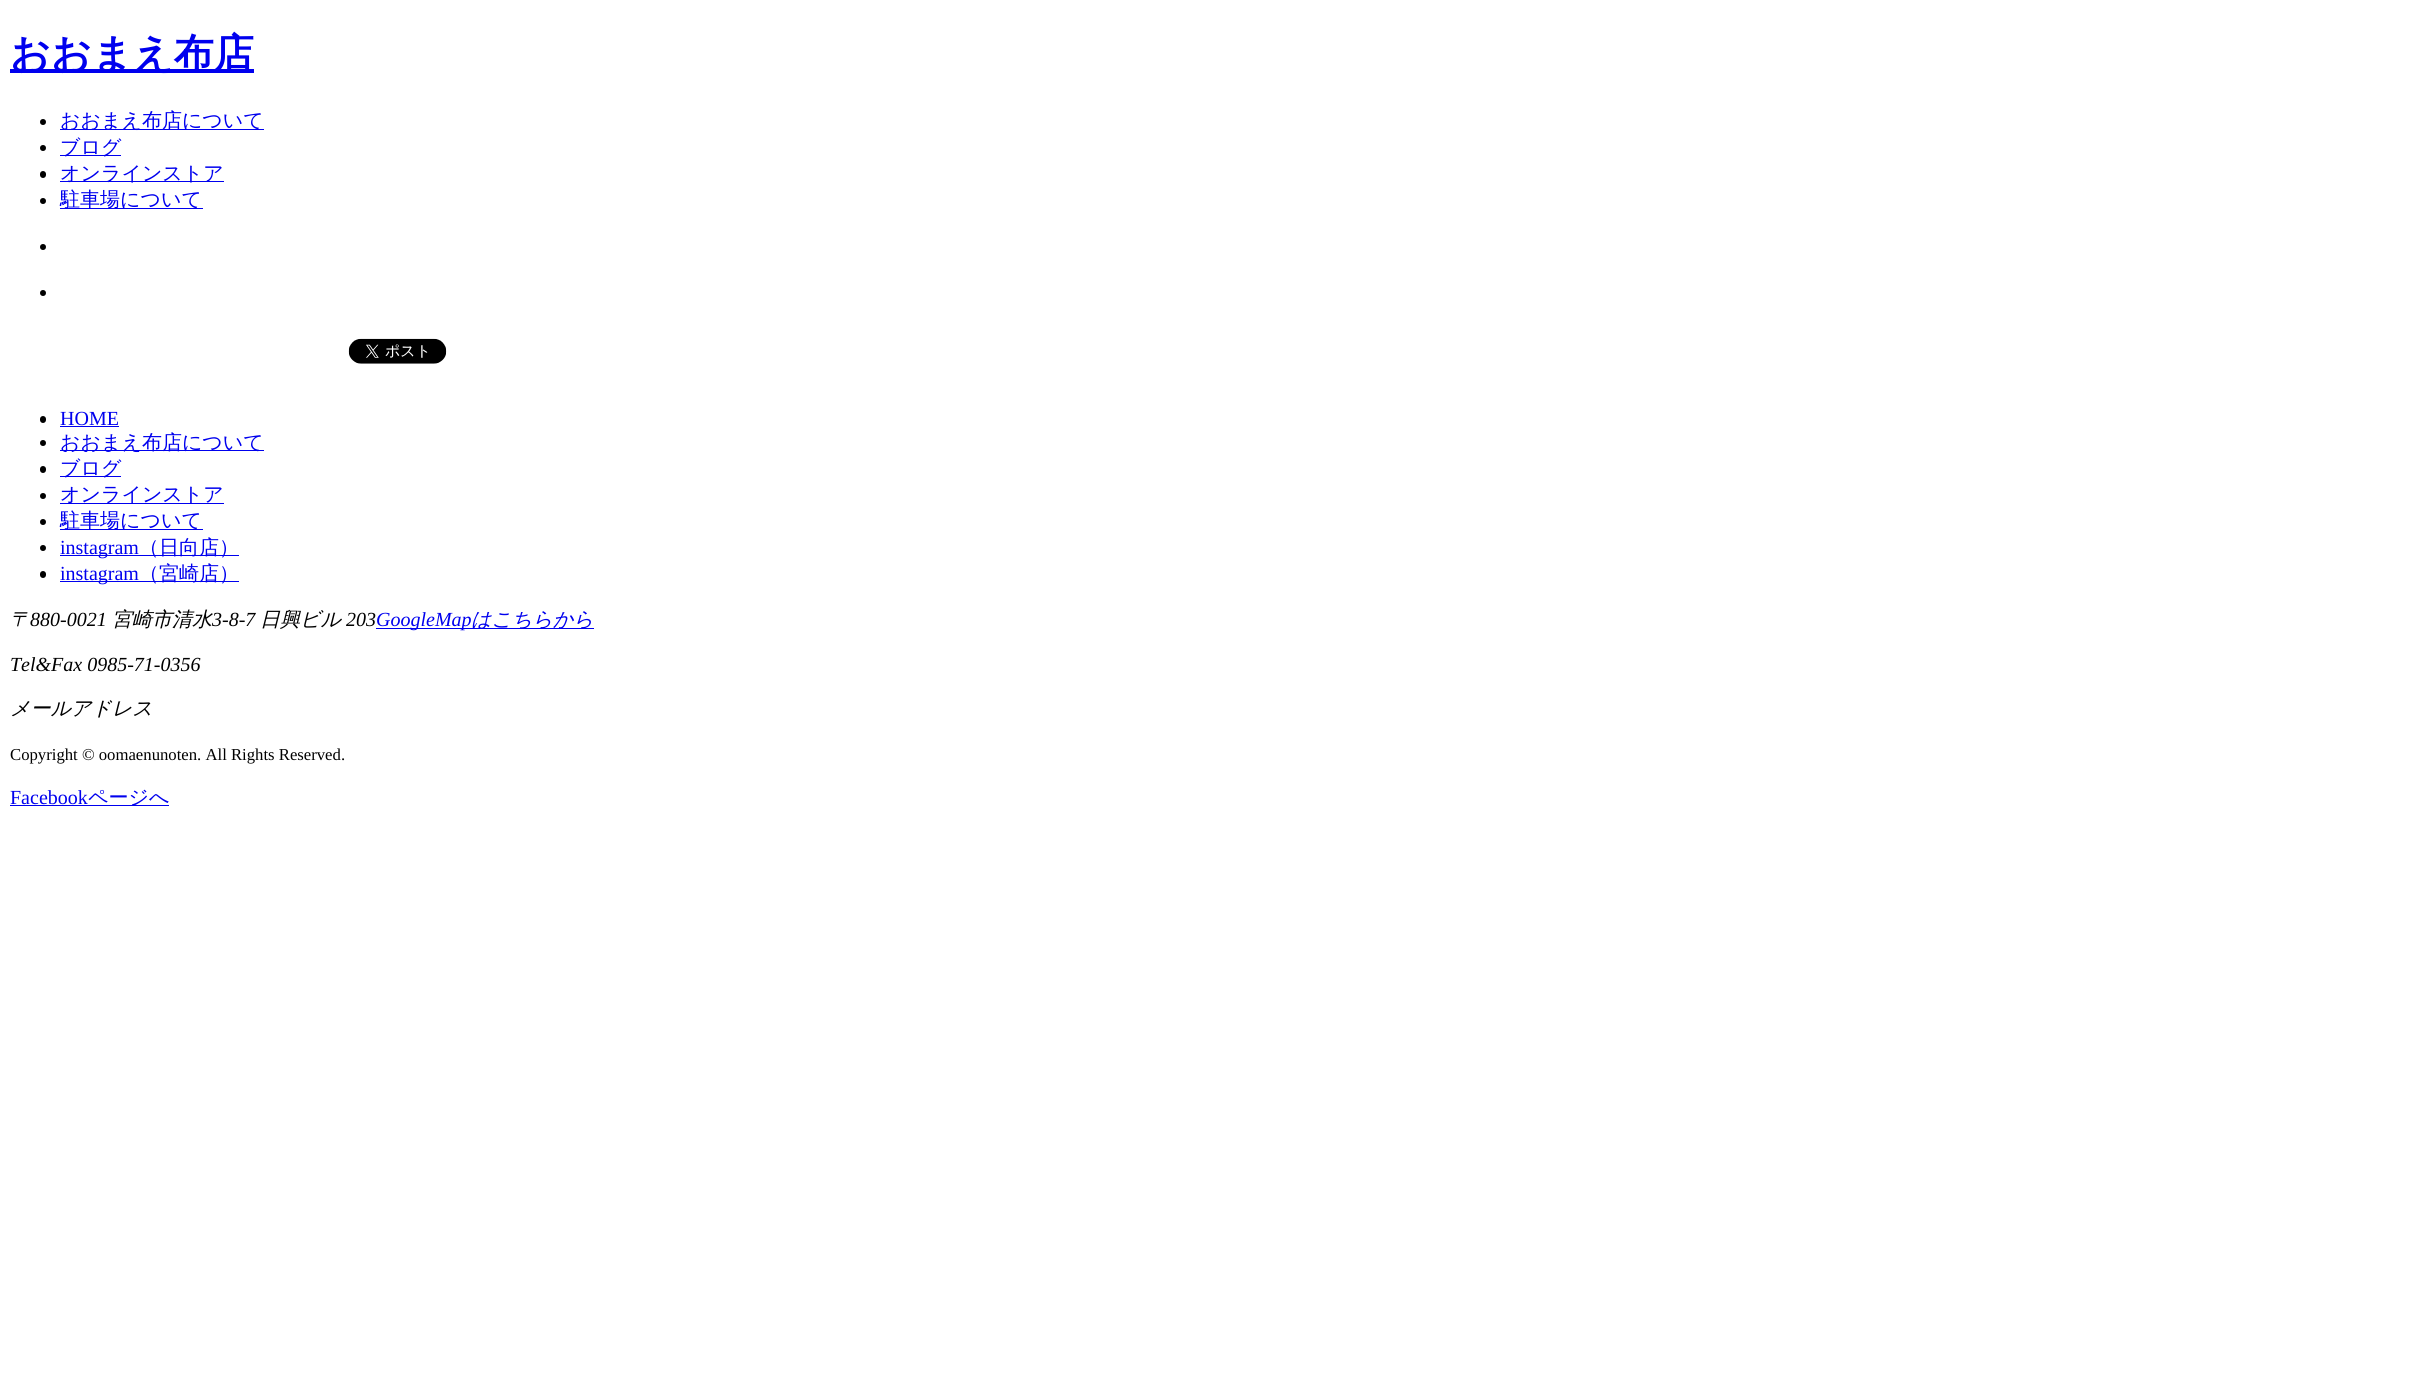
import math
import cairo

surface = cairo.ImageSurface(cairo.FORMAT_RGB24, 2432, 1374)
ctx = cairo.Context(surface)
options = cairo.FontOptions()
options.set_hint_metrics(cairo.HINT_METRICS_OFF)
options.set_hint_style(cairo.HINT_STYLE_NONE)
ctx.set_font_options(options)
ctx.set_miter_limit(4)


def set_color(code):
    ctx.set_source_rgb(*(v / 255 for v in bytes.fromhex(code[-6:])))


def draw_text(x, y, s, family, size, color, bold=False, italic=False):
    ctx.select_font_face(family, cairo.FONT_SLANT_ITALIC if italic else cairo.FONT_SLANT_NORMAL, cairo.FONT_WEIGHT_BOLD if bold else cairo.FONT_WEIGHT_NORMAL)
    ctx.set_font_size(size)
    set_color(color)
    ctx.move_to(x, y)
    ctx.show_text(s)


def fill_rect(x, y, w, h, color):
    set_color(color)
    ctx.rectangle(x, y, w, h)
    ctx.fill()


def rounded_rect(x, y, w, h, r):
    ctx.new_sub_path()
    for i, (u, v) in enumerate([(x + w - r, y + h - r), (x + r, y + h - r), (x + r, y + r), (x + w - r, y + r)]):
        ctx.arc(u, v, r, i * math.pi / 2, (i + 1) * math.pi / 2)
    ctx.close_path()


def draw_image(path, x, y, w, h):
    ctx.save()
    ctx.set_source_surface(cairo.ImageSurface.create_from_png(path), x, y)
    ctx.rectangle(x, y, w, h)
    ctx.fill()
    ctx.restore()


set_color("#ffffff")
ctx.paint()
fill_rect(10, 69, 244, 4, "#0000ee")
draw_text(10, 67, "おおまえ布店", "WenQuanYi Zen Hei", 40, "#0000ee", bold=True)
set_color("#000000")
ctx.new_path()
ctx.arc(43, 122, 3, 0, 2 * math.pi)
ctx.fill()
fill_rect(60, 129, 204, 1, "#0000ee")
draw_text(60, 127, "おおまえ布店について", "WenQuanYi Zen Hei Medium", 20, "#0000ee")
set_color("#000000")
ctx.new_path()
ctx.arc(43, 148, 3, 0, 2 * math.pi)
ctx.fill()
fill_rect(60, 155, 61, 1, "#0000ee")
draw_text(60, 154, "ブログ", "WenQuanYi Zen Hei Medium", 20, "#0000ee")
set_color("#000000")
rounded_rect(40, 171, 6, 7, 3)
ctx.fill()
fill_rect(60, 181, 164, 1, "#0000ee")
draw_text(60, 180, "オンラインストア", "WenQuanYi Zen Hei Medium", 20, "#0000ee")
set_color("#000000")
ctx.new_path()
ctx.arc(43, 201, 3, 0, 2 * math.pi)
ctx.fill()
fill_rect(60, 208, 143, 1, "#0000ee")
draw_text(60, 206, "駐車場について", "WenQuanYi Zen Hei Medium", 20, "#0000ee")
set_color("#000000")
ctx.new_path()
ctx.arc(43, 247, 3, 0, 2 * math.pi)
ctx.fill()
ctx.arc(43, 293, 3, 0, 2 * math.pi)
ctx.fill()
draw_image("assets/img1.png", 348, 338, 99, 26)
rounded_rect(40, 416, 6, 7, 3)
ctx.fill()
draw_text(60, 425, "HOME", "Liberation Serif", 20, "#0000ee")
fill_rect(60, 426, 59, 1, "#0000ee")
set_color("#000000")
ctx.new_path()
ctx.arc(43, 443, 3, 0, 2 * math.pi)
ctx.fill()
fill_rect(60, 450, 204, 1, "#0000ee")
draw_text(60, 449, "おおまえ布店について", "WenQuanYi Zen Hei Medium", 20, "#0000ee")
set_color("#000000")
rounded_rect(40, 466, 6, 7, 3)
ctx.fill()
fill_rect(60, 476, 61, 1, "#0000ee")
draw_text(60, 475, "ブログ", "WenQuanYi Zen Hei Medium", 20, "#0000ee")
set_color("#000000")
ctx.new_path()
ctx.arc(43, 496, 3, 0, 2 * math.pi)
ctx.fill()
fill_rect(60, 503, 164, 1, "#0000ee")
draw_text(60, 501, "オンラインストア", "WenQuanYi Zen Hei Medium", 20, "#0000ee")
set_color("#000000")
ctx.new_path()
ctx.arc(43, 522, 3, 0, 2 * math.pi)
ctx.fill()
fill_rect(60, 529, 143, 1, "#0000ee")
draw_text(60, 527, "駐車場について", "WenQuanYi Zen Hei Medium", 20, "#0000ee")
set_color("#000000")
ctx.new_path()
ctx.arc(43, 548, 3, 0, 2 * math.pi)
ctx.fill()
fill_rect(60, 555, 179, 1, "#0000ee")
draw_text(60, 554, "instagram", "Liberation Serif", 20, "#0000ee")
draw_text(139, 554, "（日向店）", "WenQuanYi Zen Hei Medium", 20, "#0000ee")
set_color("#000000")
rounded_rect(40, 571, 6, 7, 3)
ctx.fill()
fill_rect(60, 581, 179, 1, "#0000ee")
draw_text(60, 580, "instagram", "Liberation Serif", 20, "#0000ee")
draw_text(139, 580, "（宮崎店）", "WenQuanYi Zen Hei Medium", 20, "#0000ee")
draw_text(10, 626, "〒", "WenQuanYi Zen Hei Medium", 20, "#000000", italic=True)
draw_text(30, 626, "880-0021", "Liberation Serif", 20, "#000000", italic=True)
draw_text(112, 626, "宮崎市清水", "WenQuanYi Zen Hei Medium", 20, "#000000", italic=True)
draw_text(212, 626, "3-8-7", "Liberation Serif", 20, "#000000", italic=True)
draw_text(260, 626, "日興ビル", "WenQuanYi Zen Hei Medium", 20, "#000000", italic=True)
draw_text(346, 626, "203", "Liberation Serif", 20, "#000000", italic=True)
fill_rect(376, 628, 218, 1, "#0000ee")
draw_text(376, 626, "GoogleMap", "Liberation Serif", 20, "#0000ee", italic=True)
draw_text(471, 626, "はこちらから", "WenQuanYi Zen Hei Medium", 20, "#0000ee", italic=True)
draw_text(10, 671, "Tel&Fax 0985-71-0356", "Liberation Serif", 20, "#000000", italic=True)
draw_text(10, 715, "メールアドレス", "WenQuanYi Zen Hei Medium", 20, "#000000", italic=True)
draw_text(10, 760, "Copyright © oomaenunoten. All Rights Reserved.", "Liberation Serif", 16.7, "#000000")
draw_text(10, 804, "Facebook", "Liberation Serif", 20, "#0000ee")
fill_rect(10, 805, 159, 1, "#0000ee")
draw_text(88, 804, "ページへ", "WenQuanYi Zen Hei Medium", 20, "#0000ee")
surface.write_to_png("output.png")
